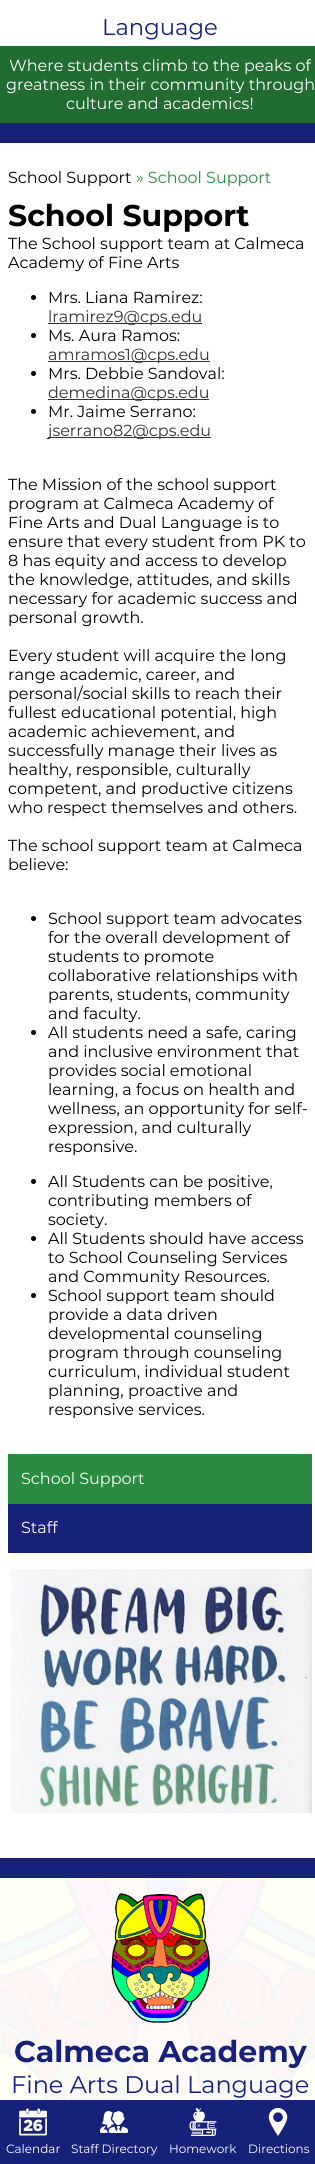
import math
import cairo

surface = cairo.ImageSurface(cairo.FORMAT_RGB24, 315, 2164)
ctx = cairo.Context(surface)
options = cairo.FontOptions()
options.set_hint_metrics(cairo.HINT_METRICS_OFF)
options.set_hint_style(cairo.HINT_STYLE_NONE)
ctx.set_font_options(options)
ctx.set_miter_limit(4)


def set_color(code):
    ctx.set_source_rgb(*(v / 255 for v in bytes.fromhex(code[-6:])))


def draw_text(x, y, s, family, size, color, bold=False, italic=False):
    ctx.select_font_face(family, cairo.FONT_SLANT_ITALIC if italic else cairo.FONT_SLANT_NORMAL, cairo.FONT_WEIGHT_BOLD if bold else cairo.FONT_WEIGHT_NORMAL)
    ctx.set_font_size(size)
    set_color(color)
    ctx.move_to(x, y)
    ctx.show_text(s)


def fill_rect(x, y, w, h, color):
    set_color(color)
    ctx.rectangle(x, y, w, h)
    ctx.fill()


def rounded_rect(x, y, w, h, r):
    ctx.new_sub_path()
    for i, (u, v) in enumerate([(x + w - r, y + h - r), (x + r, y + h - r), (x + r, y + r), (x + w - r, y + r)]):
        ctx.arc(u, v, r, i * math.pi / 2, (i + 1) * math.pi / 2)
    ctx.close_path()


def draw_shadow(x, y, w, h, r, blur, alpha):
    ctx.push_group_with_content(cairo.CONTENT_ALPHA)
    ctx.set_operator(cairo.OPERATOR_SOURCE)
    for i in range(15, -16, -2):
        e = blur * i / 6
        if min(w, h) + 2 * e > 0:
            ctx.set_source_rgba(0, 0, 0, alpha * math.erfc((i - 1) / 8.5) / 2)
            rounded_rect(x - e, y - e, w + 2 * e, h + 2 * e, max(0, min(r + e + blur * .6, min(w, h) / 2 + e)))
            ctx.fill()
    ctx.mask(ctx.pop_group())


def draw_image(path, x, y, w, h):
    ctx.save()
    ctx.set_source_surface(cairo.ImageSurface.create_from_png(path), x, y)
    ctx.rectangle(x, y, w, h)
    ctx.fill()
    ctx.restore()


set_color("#162179")
ctx.paint()
fill_rect(0, 0, 315, 46, "#ffffff")
draw_text(102, 35, "Language", "Montserrat", 22.75, "#162179")
fill_rect(0, 1878, 315, 222, "#ffffff")
draw_image("assets/img2.png", 0, 1878, 315, 222)
set_color("#000000")
draw_shadow(0, 143, 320, 1715, 0, 7.5, 0.15)
fill_rect(0, 46, 315, 77, "#206c32")
draw_text(9, 71, "Where students climb to the peaks of", "Montserrat", 16, "#ffffff")
draw_text(6, 90, "greatness in their community through", "Montserrat", 16, "#ffffff")
draw_text(66, 109, "culture and academics!", "Montserrat", 16, "#ffffff")
fill_rect(0, 143, 315, 1715, "#ffffff")
draw_text(8, 183, "School Support", "Montserrat", 16, "#000000")
draw_text(136, 183, "» School Support", "Montserrat", 16, "#298c40")
draw_text(8, 226, "School Support", "Montserrat", 30, "#000000", bold=True)
draw_text(8, 249, "The School support team at Calmeca", "Montserrat", 16, "#000000")
draw_text(8, 268, "Academy of Fine Arts", "Montserrat", 16, "#000000")
ctx.new_path()
ctx.arc(33.5, 297.5, 2.5, 0, 2 * math.pi)
ctx.fill()
draw_text(48, 303, "Mrs. Liana Ramirez:", "Montserrat", 16, "#000000")
fill_rect(48, 323, 154, 1, "#333333")
draw_text(48, 322, "lramirez9@cps.edu", "Montserrat", 16, "#333333")
set_color("#000000")
ctx.new_path()
ctx.arc(33.5, 335.5, 2.5, 0, 2 * math.pi)
ctx.fill()
draw_text(48, 341, "Ms. Aura Ramos:", "Montserrat", 16, "#000000")
fill_rect(48, 361, 162, 1, "#333333")
draw_text(48, 360, "amramos1@cps.edu", "Montserrat", 16, "#333333")
set_color("#000000")
ctx.new_path()
ctx.arc(33.5, 373.5, 2.5, 0, 2 * math.pi)
ctx.fill()
draw_text(48, 379, "Mrs. Debbie Sandoval:", "Montserrat", 16, "#000000")
fill_rect(48, 399, 161, 1, "#333333")
draw_text(48, 398, "demedina@cps.edu", "Montserrat", 16, "#333333")
set_color("#000000")
ctx.new_path()
ctx.arc(33.5, 411.5, 2.5, 0, 2 * math.pi)
ctx.fill()
draw_text(48, 417, "Mr. Jaime Serrano:", "Montserrat", 16, "#000000")
fill_rect(48, 437, 163, 1, "#333333")
draw_text(48, 436, "jserrano82@cps.edu", "Montserrat", 16, "#333333")
draw_text(8, 490, "The Mission of the school support", "Montserrat", 16, "#000000")
draw_text(8, 509, "program at Calmeca Academy of", "Montserrat", 16, "#000000")
draw_text(8, 528, "Fine Arts and Dual Language is to", "Montserrat", 16, "#000000")
draw_text(8, 547, "ensure that every student from PK to", "Montserrat", 16, "#000000")
draw_text(8, 566, "8 has equity and access to develop", "Montserrat", 16, "#000000")
draw_text(8, 585, "the knowledge, attitudes, and skills", "Montserrat", 16, "#000000")
draw_text(8, 604, "necessary for academic success and", "Montserrat", 16, "#000000")
draw_text(8, 623, "personal growth.", "Montserrat", 16, "#000000")
draw_text(8, 661, "Every student will acquire the long", "Montserrat", 16, "#000000")
draw_text(8, 680, "range academic, career, and", "Montserrat", 16, "#000000")
draw_text(8, 699, "personal/social skills to reach their", "Montserrat", 16, "#000000")
draw_text(8, 718, "fullest educational potential, high", "Montserrat", 16, "#000000")
draw_text(8, 737, "academic achievement, and", "Montserrat", 16, "#000000")
draw_text(8, 756, "successfully manage their lives as", "Montserrat", 16, "#000000")
draw_text(8, 775, "healthy, responsible, culturally", "Montserrat", 16, "#000000")
draw_text(8, 794, "competent, and productive citizens", "Montserrat", 16, "#000000")
draw_text(8, 813, "who respect themselves and others.", "Montserrat", 16, "#000000")
draw_text(8, 851, "The school support team at Calmeca", "Montserrat", 16, "#000000")
draw_text(8, 870, "believe:", "Montserrat", 16, "#000000")
ctx.new_path()
ctx.arc(33.5, 918.5, 2.5, 0, 2 * math.pi)
ctx.fill()
draw_text(48, 924, "School support team advocates", "Montserrat", 16, "#000000")
draw_text(48, 943, "for the overall development of", "Montserrat", 16, "#000000")
draw_text(48, 962, "students to promote", "Montserrat", 16, "#000000")
draw_text(48, 981, "collaborative relationships with", "Montserrat", 16, "#000000")
draw_text(48, 1000, "parents, students, community", "Montserrat", 16, "#000000")
draw_text(48, 1019, "and faculty.", "Montserrat", 16, "#000000")
ctx.new_path()
ctx.arc(33.5, 1032.5, 2.5, 0, 2 * math.pi)
ctx.fill()
draw_text(48, 1038, "All students need a safe, caring", "Montserrat", 16, "#000000")
draw_text(48, 1057, "and inclusive environment that", "Montserrat", 16, "#000000")
draw_text(48, 1076, "provides social emotional", "Montserrat", 16, "#000000")
draw_text(48, 1095, "learning, a focus on health and", "Montserrat", 16, "#000000")
draw_text(48, 1114, "wellness, an opportunity for self-", "Montserrat", 16, "#000000")
draw_text(48, 1133, "expression, and culturally", "Montserrat", 16, "#000000")
draw_text(48, 1152, "responsive.", "Montserrat", 16, "#000000")
ctx.new_path()
ctx.arc(33.5, 1181.5, 2.5, 0, 2 * math.pi)
ctx.fill()
draw_text(48, 1187, "All Students can be positive,", "Montserrat", 16, "#000000")
draw_text(48, 1206, "contributing members of", "Montserrat", 16, "#000000")
draw_text(48, 1225, "society.", "Montserrat", 16, "#000000")
ctx.new_path()
ctx.arc(33.5, 1238.5, 2.5, 0, 2 * math.pi)
ctx.fill()
draw_text(48, 1244, "All Students should have access", "Montserrat", 16, "#000000")
draw_text(48, 1263, "to School Counseling Services", "Montserrat", 16, "#000000")
draw_text(48, 1282, "and Community Resources.", "Montserrat", 16, "#000000")
ctx.new_path()
ctx.arc(33.5, 1295.5, 2.5, 0, 2 * math.pi)
ctx.fill()
draw_text(48, 1301, "School support team should", "Montserrat", 16, "#000000")
draw_text(48, 1320, "provide a data driven", "Montserrat", 16, "#000000")
draw_text(48, 1339, "developmental counseling", "Montserrat", 16, "#000000")
draw_text(48, 1358, "program through counseling", "Montserrat", 16, "#000000")
draw_text(48, 1377, "curriculum, individual student", "Montserrat", 16, "#000000")
draw_text(48, 1396, "planning, proactive and", "Montserrat", 16, "#000000")
draw_text(48, 1415, "responsive services.", "Montserrat", 16, "#000000")
fill_rect(8, 1504, 304, 49, "#162179")
fill_rect(8, 1454, 304, 50, "#298c40")
draw_text(21, 1484, "School Support", "Montserrat", 16, "#ffffff")
draw_text(21, 1533, "Staff", "Montserrat", 16, "#ffffff")
draw_image("assets/img1.png", 10, 1569, 302, 244)
draw_image("assets/img3.png", 111, 1893, 99, 130)
draw_text(14, 2062, "Calmeca Academy", "Montserrat", 30, "#162179", bold=True)
draw_text(11, 2093, "Fine Arts Dual Language", "Montserrat", 24, "#162179")
draw_image("assets/img4.png", 19, 2108, 28, 28)
draw_text(6, 2153, "Calendar", "Montserrat", 12, "#ffffff")
draw_image("assets/img5.png", 100, 2111, 28, 22)
draw_text(71, 2153, "Staff Directory", "Montserrat", 12, "#ffffff")
draw_image("assets/img6.png", 189, 2108, 28, 28)
draw_text(169, 2153, "Homework", "Montserrat", 12, "#ffffff")
draw_image("assets/img7.png", 268, 2108, 20, 28)
draw_text(248, 2153, "Directions", "Montserrat", 12, "#ffffff")
surface.write_to_png("output.png")
